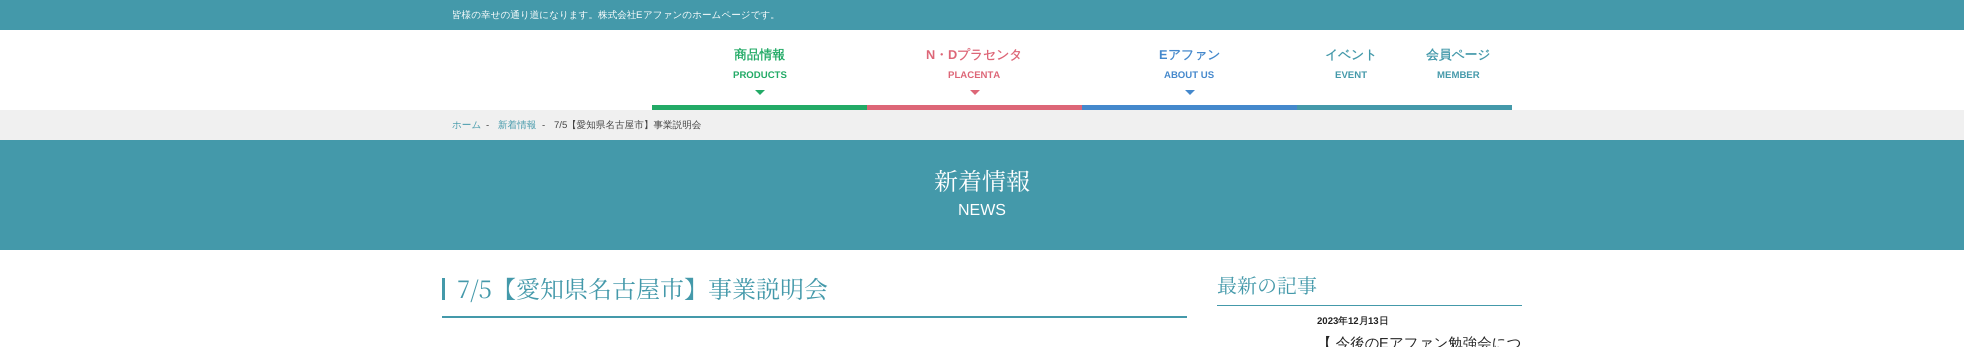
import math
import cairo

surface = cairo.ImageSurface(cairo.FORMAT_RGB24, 1964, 347)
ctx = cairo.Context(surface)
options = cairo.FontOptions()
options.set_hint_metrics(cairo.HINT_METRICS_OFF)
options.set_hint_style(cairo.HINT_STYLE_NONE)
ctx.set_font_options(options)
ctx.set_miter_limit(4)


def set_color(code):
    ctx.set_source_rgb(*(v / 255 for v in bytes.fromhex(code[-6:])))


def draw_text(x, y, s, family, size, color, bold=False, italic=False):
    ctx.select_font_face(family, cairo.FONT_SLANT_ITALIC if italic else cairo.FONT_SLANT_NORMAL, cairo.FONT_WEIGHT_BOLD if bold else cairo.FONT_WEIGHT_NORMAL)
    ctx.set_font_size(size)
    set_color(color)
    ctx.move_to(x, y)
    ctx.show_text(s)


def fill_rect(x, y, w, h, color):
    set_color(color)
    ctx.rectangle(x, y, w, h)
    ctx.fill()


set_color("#ffffff")
ctx.paint()
fill_rect(0, 0, 1964, 30, "#4499aa")
draw_text(452, 18, "皆様の幸せの通り道になります。株式会社", "WenQuanYi Zen Hei Medium", 9.6, "#ffffff")
draw_text(636, 18, "E", "Liberation Sans", 9.6, "#ffffff")
draw_text(643, 18, "アファンのホームページです。", "WenQuanYi Zen Hei Medium", 9.6, "#ffffff")
fill_rect(652, 105, 215, 5, "#22aa66")
draw_text(734, 59, "商品情報", "WenQuanYi Zen Hei", 12.75, "#22aa66", bold=True)
draw_text(733, 78, "PRODUCTS", "Liberation Sans", 9.6, "#22aa66", bold=True)
ctx.new_path()
ctx.move_to(755, 90)
ctx.line_to(765, 90)
ctx.line_to(760, 95)
ctx.close_path()
ctx.fill()
fill_rect(867, 105, 215, 5, "#dd6677")
draw_text(926, 59, "N", "Liberation Sans", 12.75, "#dd6677", bold=True)
draw_text(935, 59, "・", "WenQuanYi Zen Hei", 12.75, "#dd6677", bold=True)
draw_text(948, 59, "D", "Liberation Sans", 12.75, "#dd6677", bold=True)
draw_text(957, 59, "プラセンタ", "WenQuanYi Zen Hei", 12.75, "#dd6677", bold=True)
draw_text(948, 78, "PLACENTA", "Liberation Sans", 9.6, "#dd6677", bold=True)
ctx.new_path()
ctx.move_to(970, 90)
ctx.line_to(980, 90)
ctx.line_to(975, 95)
ctx.close_path()
ctx.fill()
fill_rect(1082, 105, 215, 5, "#4488cc")
draw_text(1159, 59, "E", "Liberation Sans", 12.75, "#4488cc", bold=True)
draw_text(1168, 59, "アファン", "WenQuanYi Zen Hei", 12.75, "#4488cc", bold=True)
draw_text(1164, 78, "ABOUT US", "Liberation Sans", 9.6, "#4488cc", bold=True)
ctx.new_path()
ctx.move_to(1185, 90)
ctx.line_to(1195, 90)
ctx.line_to(1190, 95)
ctx.close_path()
ctx.fill()
fill_rect(1297, 105, 215, 5, "#4499aa")
draw_text(1325, 59, "イベント", "WenQuanYi Zen Hei", 12.75, "#4499aa", bold=True)
draw_text(1335, 78, "EVENT", "Liberation Sans", 9.6, "#4499aa", bold=True)
draw_text(1426, 59, "会員ページ", "WenQuanYi Zen Hei", 12.75, "#4499aa", bold=True)
draw_text(1437, 78, "MEMBER", "Liberation Sans", 9.6, "#4499aa", bold=True)
fill_rect(0, 110, 1964, 30, "#f0f0f0")
draw_text(452, 128, "ホーム", "WenQuanYi Zen Hei Medium", 9.6, "#4499aa")
draw_text(486, 128, "-", "Liberation Sans", 9.6, "#444444")
draw_text(498, 128, "新着情報", "WenQuanYi Zen Hei Medium", 9.6, "#4499aa")
draw_text(542, 128, "-", "Liberation Sans", 9.6, "#444444")
draw_text(554, 128, "7/5", "Liberation Sans", 9.6, "#444444")
draw_text(567, 128, "【愛知県名古屋市】事業説明会", "WenQuanYi Zen Hei Medium", 9.6, "#444444")
fill_rect(0, 140, 1964, 110, "#4499aa")
draw_text(934, 190, "新着情報", "Noto Serif JP", 24, "#ffffff")
draw_text(958, 215, "NEWS", "Liberation Sans", 16, "#ffffff")
fill_rect(442, 316, 745, 2, "#4499aa")
fill_rect(442, 278, 3, 22, "#4499aa")
draw_text(457, 298, "7/5【愛知県名古屋市】事業説明会", "Noto Serif JP", 24, "#4499aa")
fill_rect(1217, 305, 305, 1, "#4499aa")
draw_text(1217, 293, "最新の記事", "Noto Serif JP", 20, "#4499aa")
draw_text(1317, 324, "2023", "Liberation Sans", 9.6, "#222222", bold=True)
draw_text(1338, 324, "年", "WenQuanYi Zen Hei", 9.6, "#222222", bold=True)
draw_text(1348, 324, "12", "Liberation Sans", 9.6, "#222222", bold=True)
draw_text(1359, 324, "月", "WenQuanYi Zen Hei", 9.6, "#222222", bold=True)
draw_text(1368, 324, "13", "Liberation Sans", 9.6, "#222222", bold=True)
draw_text(1379, 324, "日", "WenQuanYi Zen Hei", 9.6, "#222222", bold=True)
draw_text(1317, 348, "【 今後の", "WenQuanYi Zen Hei Medium", 14.5, "#222222")
draw_text(1379, 348, "E", "Liberation Sans", 14.5, "#222222")
draw_text(1389, 348, "アファン勉強会につ", "WenQuanYi Zen Hei Medium", 14.5, "#222222")
surface.write_to_png("output.png")
